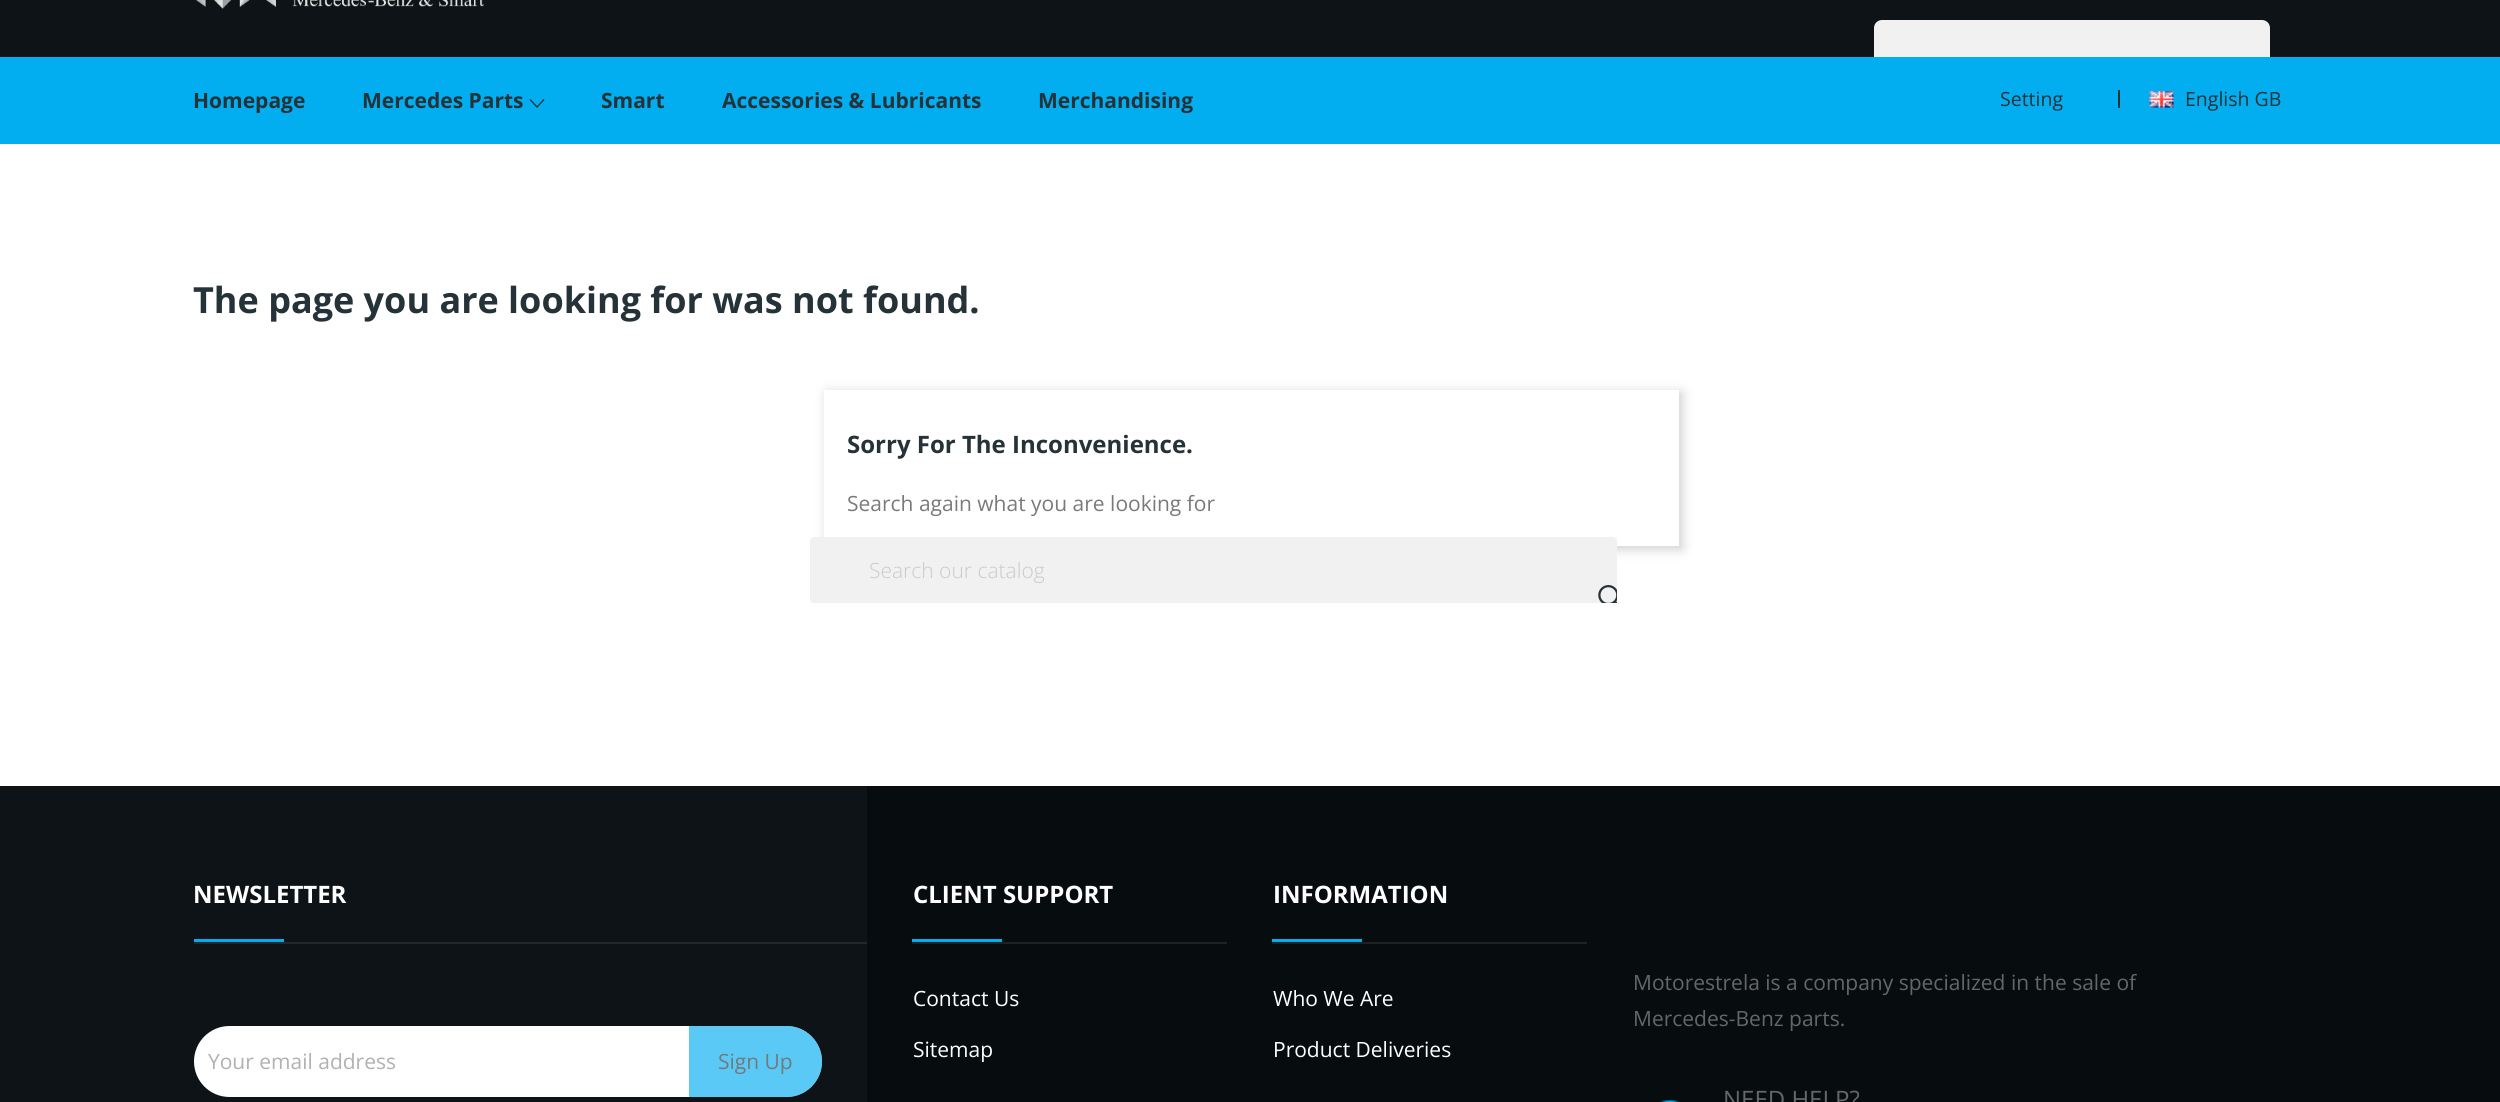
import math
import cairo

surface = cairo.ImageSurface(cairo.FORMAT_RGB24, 2500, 1102)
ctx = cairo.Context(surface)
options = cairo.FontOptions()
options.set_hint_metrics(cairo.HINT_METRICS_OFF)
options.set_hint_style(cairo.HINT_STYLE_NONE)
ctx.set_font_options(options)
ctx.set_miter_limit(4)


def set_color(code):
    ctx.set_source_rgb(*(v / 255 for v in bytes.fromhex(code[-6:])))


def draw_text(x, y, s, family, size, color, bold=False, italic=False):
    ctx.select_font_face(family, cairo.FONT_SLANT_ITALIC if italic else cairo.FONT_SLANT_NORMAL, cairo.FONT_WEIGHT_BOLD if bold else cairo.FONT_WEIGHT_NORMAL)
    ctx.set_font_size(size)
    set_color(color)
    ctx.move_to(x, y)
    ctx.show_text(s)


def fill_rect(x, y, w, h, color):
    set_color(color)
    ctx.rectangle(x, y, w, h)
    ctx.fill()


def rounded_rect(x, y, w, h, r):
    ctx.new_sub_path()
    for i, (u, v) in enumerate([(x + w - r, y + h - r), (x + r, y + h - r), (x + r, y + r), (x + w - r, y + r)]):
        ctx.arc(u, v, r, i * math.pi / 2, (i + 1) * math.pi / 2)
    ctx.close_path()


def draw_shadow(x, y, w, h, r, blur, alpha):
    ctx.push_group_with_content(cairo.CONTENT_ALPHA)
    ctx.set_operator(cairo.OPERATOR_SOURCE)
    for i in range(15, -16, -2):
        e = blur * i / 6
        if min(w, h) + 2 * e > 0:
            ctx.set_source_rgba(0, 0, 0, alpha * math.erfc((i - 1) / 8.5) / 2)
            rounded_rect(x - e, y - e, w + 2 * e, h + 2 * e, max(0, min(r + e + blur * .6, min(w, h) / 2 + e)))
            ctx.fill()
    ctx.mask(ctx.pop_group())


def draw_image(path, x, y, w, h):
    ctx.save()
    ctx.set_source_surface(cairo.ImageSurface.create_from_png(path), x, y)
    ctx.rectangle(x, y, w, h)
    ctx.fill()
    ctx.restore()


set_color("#ffffff")
ctx.paint()
fill_rect(0, 0, 2500, 57, "#0d1316")
draw_image("assets/img1.png", 196, 0, 289, 9)
ctx.save()
ctx.rectangle(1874, 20, 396, 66)
ctx.clip()
set_color("#000000")
draw_shadow(1874, 20, 396, 66, 8, 3, 0.15)
ctx.restore()
set_color("#f1f1f1")
rounded_rect(1874, 20, 396, 66, 8)
ctx.fill()
fill_rect(0, 57, 2500, 87, "#02adf0")
draw_text(193, 108, "Homepage", "Open Sans", 21, "#253237", bold=True)
draw_text(362, 108, "Mercedes Parts", "Open Sans", 21, "#253237", bold=True)
draw_image("assets/img2.png", 529, 99, 16, 9)
draw_text(601, 108, "Smart", "Open Sans", 21, "#253237", bold=True)
draw_text(722, 108, "Accessories & Lubricants", "Open Sans", 21, "#253237", bold=True)
draw_text(1038, 108, "Merchandising", "Open Sans", 21, "#253237", bold=True)
draw_text(2000, 106, "Setting", "Open Sans", 19.5, "#253237")
fill_rect(2118, 90, 2, 18, "#253237")
draw_image("assets/img3.png", 2149, 91, 25, 17)
draw_text(2185, 106, "English GB", "Open Sans", 19.5, "#253237")
draw_text(193, 313, "The page you are looking for was not found.", "Open Sans", 36, "#253237", bold=True)
set_color("#000000")
draw_shadow(827, 393, 855, 156, 0, 6, 0.2)
fill_rect(824, 390, 855, 156, "#ffffff")
draw_text(847, 453, "Sorry For The Inconvenience.", "Open Sans", 24, "#253237", bold=True)
draw_text(847, 511, "Search again what you are looking for", "Open Sans", 21, "#7a7a7a")
ctx.save()
ctx.rectangle(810, 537, 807, 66)
ctx.clip()
set_color("#000000")
draw_shadow(810, 537, 807, 66, 8, 3, 0.15)
ctx.restore()
set_color("#f1f1f1")
rounded_rect(810, 537, 807, 66, 8)
ctx.fill()
draw_text(869, 578, "Search our catalog", "Open Sans Light", 21, "#cacaca")
draw_image("assets/img4.png", 1598, 585, 19, 18)
fill_rect(867, 786, 1633, 316, "#070c0f")
fill_rect(0, 786, 867, 316, "#0d1316")
fill_rect(194, 942, 673, 2, "#22282b")
draw_text(193, 903, "NEWSLETTER", "Open Sans", 24, "#ffffff", bold=True)
fill_rect(194, 939, 90, 3, "#02adf0")
set_color("#ffffff")
rounded_rect(194, 1026, 628, 71, 35.5)
ctx.fill()
draw_text(208, 1069, "Your email address", "Open Sans", 21, "#b1b1b1")
ctx.set_source_rgba(0.008, 0.678, 0.941, 0.65)
ctx.new_path()
ctx.move_to(689, 1026)
ctx.line_to(786.5, 1026)
ctx.curve_to(806, 1026, 822, 1042, 822, 1061.5)
ctx.curve_to(822, 1081, 806, 1097, 786.5, 1097)
ctx.line_to(689, 1097)
ctx.close_path()
ctx.fill()
draw_text(718, 1069, "Sign Up", "Open Sans", 21, "#717a7d")
fill_rect(912, 942, 315, 2, "#1d2224")
draw_text(913, 903, "CLIENT SUPPORT", "Open Sans", 24, "#ffffff", bold=True)
fill_rect(912, 939, 90, 3, "#02adf0")
draw_text(913, 1006, "Contact Us", "Open Sans", 21, "#ffffff")
draw_text(913, 1057, "Sitemap", "Open Sans", 21, "#ffffff")
fill_rect(1272, 942, 315, 2, "#1d2224")
draw_text(1273, 903, "INFORMATION", "Open Sans", 24, "#ffffff", bold=True)
fill_rect(1272, 939, 90, 3, "#02adf0")
draw_text(1273, 1006, "Who We Are", "Open Sans", 21, "#ffffff")
draw_text(1273, 1057, "Product Deliveries", "Open Sans", 21, "#ffffff")
draw_text(1633, 990, "Motorestrela is a company specialized in the sale of", "Open Sans", 21, "#666666")
draw_text(1633, 1026, "Mercedes-Benz parts.", "Open Sans", 21, "#666666")
draw_image("assets/img5.png", 1659, 1100, 22, 2)
draw_text(1723, 1108, "NEED HELP?", "Open Sans", 24, "#666666")
surface.write_to_png("output.png")
